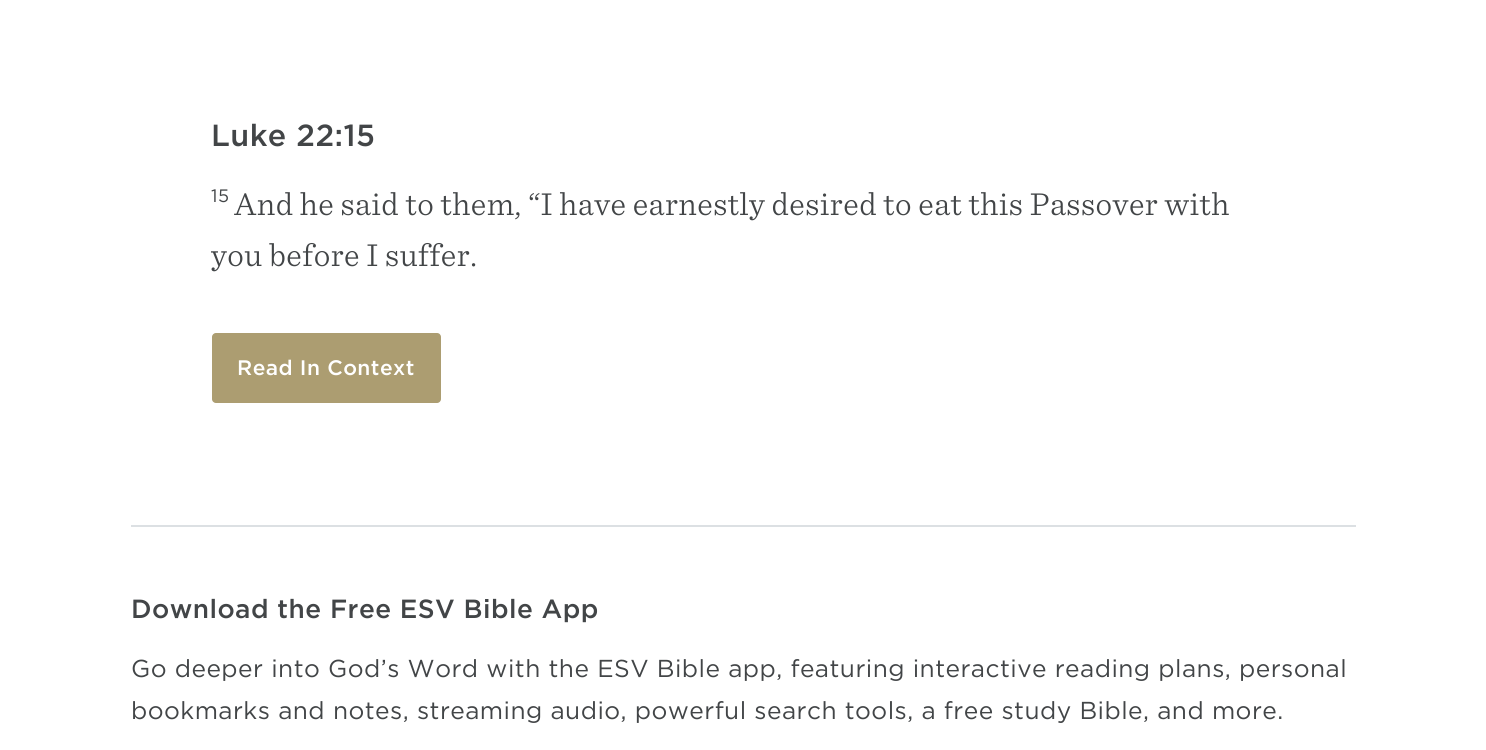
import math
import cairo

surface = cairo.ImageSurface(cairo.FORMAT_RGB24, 1486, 750)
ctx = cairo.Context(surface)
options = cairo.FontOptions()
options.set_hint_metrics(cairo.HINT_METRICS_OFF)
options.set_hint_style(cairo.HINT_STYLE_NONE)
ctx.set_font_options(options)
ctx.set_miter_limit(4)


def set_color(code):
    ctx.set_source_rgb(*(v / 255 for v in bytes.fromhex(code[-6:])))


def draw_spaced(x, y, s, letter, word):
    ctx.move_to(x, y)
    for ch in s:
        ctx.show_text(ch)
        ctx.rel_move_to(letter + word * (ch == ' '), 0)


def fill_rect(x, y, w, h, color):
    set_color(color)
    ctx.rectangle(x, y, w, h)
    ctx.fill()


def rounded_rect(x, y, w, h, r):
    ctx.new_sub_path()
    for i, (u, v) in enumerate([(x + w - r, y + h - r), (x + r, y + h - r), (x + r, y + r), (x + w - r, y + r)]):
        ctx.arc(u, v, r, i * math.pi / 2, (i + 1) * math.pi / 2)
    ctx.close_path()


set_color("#ffffff")
ctx.paint()
ctx.select_font_face("Gotham Medium")
ctx.set_font_size(30.5)
set_color("#424547")
draw_spaced(211, 146, "Luke 22:15", 0.45, 0)
ctx.select_font_face("Gotham")
ctx.set_font_size(18)
draw_spaced(211, 202, "15", 0.45, 0)
ctx.select_font_face("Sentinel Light")
ctx.set_font_size(33.25)
draw_spaced(234, 215, "And he said to them, “I have earnestly desired to eat this Passover with", 0.45, 0)
draw_spaced(211, 266, "you before I suffer.", 0.45, 0)
set_color("#ac9d71")
rounded_rect(212, 333, 229, 70, 4)
ctx.fill()
ctx.select_font_face("Gotham Medium")
ctx.set_font_size(21)
set_color("#ffffff")
draw_spaced(237, 375, "Read In Context", 0.45, 0)
fill_rect(131, 525, 1225, 2, "#dce0e3")
ctx.set_font_size(26.25)
set_color("#424547")
draw_spaced(131, 618, "Download the Free ESV Bible App", 0.45, 0)
ctx.select_font_face("Gotham")
ctx.set_font_size(24.5)
draw_spaced(131, 677, "Go deeper into God’s Word with the ESV Bible app, featuring interactive reading plans, personal", 0.45, 0)
draw_spaced(131, 719, "bookmarks and notes, streaming audio, powerful search tools, a free study Bible, and more.", 0.45, 0)
surface.write_to_png("output.png")
